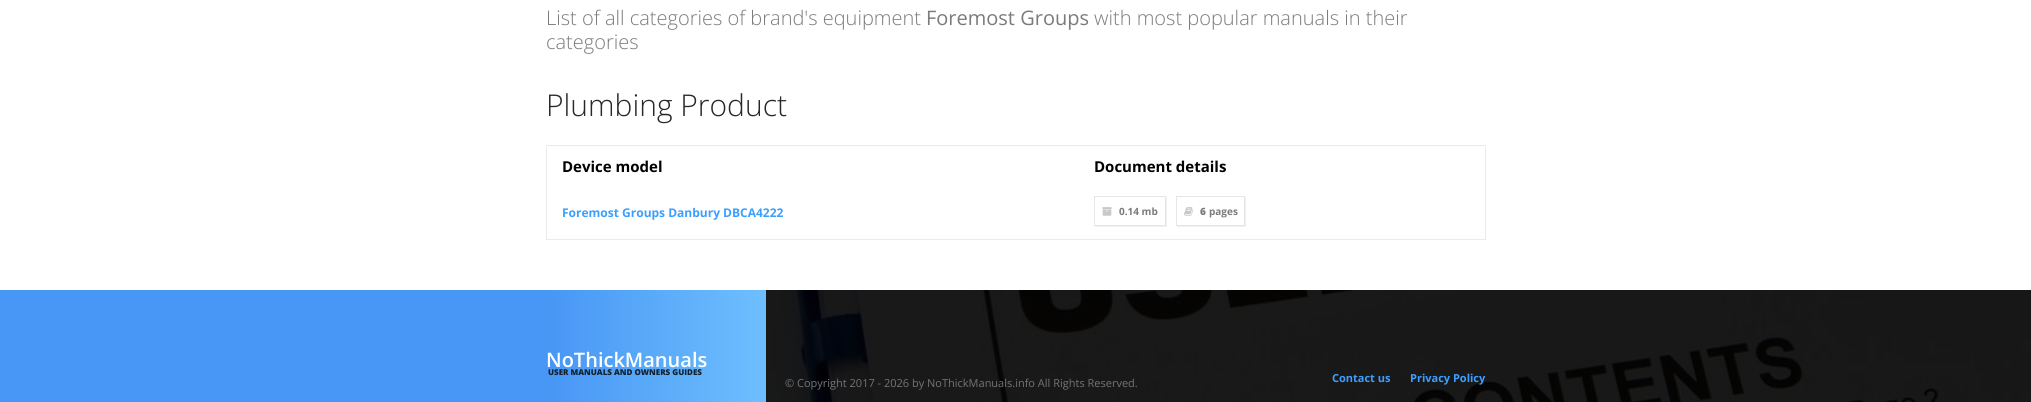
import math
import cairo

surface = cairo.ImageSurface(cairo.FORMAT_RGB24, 2031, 402)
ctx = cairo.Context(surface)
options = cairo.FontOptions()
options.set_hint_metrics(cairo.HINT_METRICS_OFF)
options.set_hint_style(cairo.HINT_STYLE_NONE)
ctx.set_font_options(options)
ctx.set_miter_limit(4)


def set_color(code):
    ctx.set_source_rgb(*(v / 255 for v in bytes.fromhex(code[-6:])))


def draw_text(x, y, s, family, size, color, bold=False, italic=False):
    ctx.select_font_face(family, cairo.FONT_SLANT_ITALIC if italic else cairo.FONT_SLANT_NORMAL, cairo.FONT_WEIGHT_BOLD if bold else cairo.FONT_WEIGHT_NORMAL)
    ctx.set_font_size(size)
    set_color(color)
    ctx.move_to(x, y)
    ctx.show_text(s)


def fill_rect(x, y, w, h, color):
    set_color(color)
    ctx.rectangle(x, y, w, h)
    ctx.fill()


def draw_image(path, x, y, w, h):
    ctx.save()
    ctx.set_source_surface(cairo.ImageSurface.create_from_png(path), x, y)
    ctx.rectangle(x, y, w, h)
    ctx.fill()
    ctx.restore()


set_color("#ffffff")
ctx.paint()
draw_text(546, 25, "List of all categories of brand's equipment", "Open Sans Light", 20, "#7b7b7b")
draw_text(926, 25, "Foremost Groups", "Open Sans", 20, "#7b7b7b")
draw_text(1094, 25, "with most popular manuals in their", "Open Sans Light", 20, "#7b7b7b")
draw_text(546, 49, "categories", "Open Sans Light", 20, "#7b7b7b")
draw_text(546, 116, "Plumbing Product", "Open Sans Light", 30, "#282828")
ctx.rectangle(546.5, 145.5, 939, 94)
set_color("#ebebeb")
ctx.set_line_width(1)
ctx.stroke()
draw_text(562, 172, "Device model", "Open Sans", 15, "#000000", bold=True)
draw_text(1094, 172, "Document details", "Open Sans", 15, "#000000", bold=True)
draw_text(562, 217, "Foremost Groups Danbury DBCA4222", "Open Sans", 12, "#3c9fff", bold=True)
set_color("#f0f0f0")
ctx.new_path()
ctx.move_to(1095, 226)
ctx.line_to(1095, 227)
ctx.line_to(1167, 227)
ctx.line_to(1167, 197)
ctx.line_to(1166, 197)
ctx.line_to(1166, 226)
ctx.close_path()
ctx.fill()
ctx.rectangle(1094.5, 196.5, 71, 29)
set_color("#e6e6e6")
ctx.stroke()
draw_image("assets/img1.png", 1102, 207, 10, 9)
draw_text(1119, 215, "0.14 mb", "Open Sans", 10, "#7b7b7b", bold=True)
set_color("#f0f0f0")
ctx.new_path()
ctx.move_to(1177, 226)
ctx.line_to(1177, 227)
ctx.line_to(1246, 227)
ctx.line_to(1246, 197)
ctx.line_to(1245, 197)
ctx.line_to(1245, 226)
ctx.close_path()
ctx.fill()
ctx.rectangle(1176.5, 196.5, 68, 29)
set_color("#e6e6e6")
ctx.stroke()
draw_image("assets/img2.png", 1184, 207, 10, 9)
draw_text(1200, 215, "6", "Open Sans ExtraBold", 10, "#7b7b7b")
draw_text(1209, 215, "pages", "Open Sans", 10, "#7b7b7b", bold=True)
fill_rect(766, 290, 1265, 112, "#010101")
draw_image("assets/img3.png", 766, 290, 1265, 112)
fill_rect(0, 290, 546, 112, "#4896f5")
gradient = cairo.LinearGradient(546, 380, 766, 380)
gradient.add_color_stop_rgba(0, 0.282, 0.588, 0.961, 1)
gradient.add_color_stop_rgba(1, 0.427, 0.749, 0.996, 1)
ctx.set_source(gradient)
ctx.rectangle(546, 290, 220, 112)
ctx.fill()
draw_text(546, 367, "NoThickManuals", "Open Sans SemiBold", 20, "#ffffff")
draw_text(548, 375, "USER MANUALS AND OWNERS GUIDES", "Open Sans ExtraBold", 8, "#112132")
draw_text(785, 387, "© Copyright 2017 - 2026 by NoThickManuals.info All Rights Reserved.", "Open Sans", 11, "#747474")
draw_text(1332, 382, "Contact us", "Open Sans", 11, "#3c9fff", bold=True)
draw_text(1410, 382, "Privacy Policy", "Open Sans", 11, "#3c9fff", bold=True)
surface.write_to_png("output.png")
